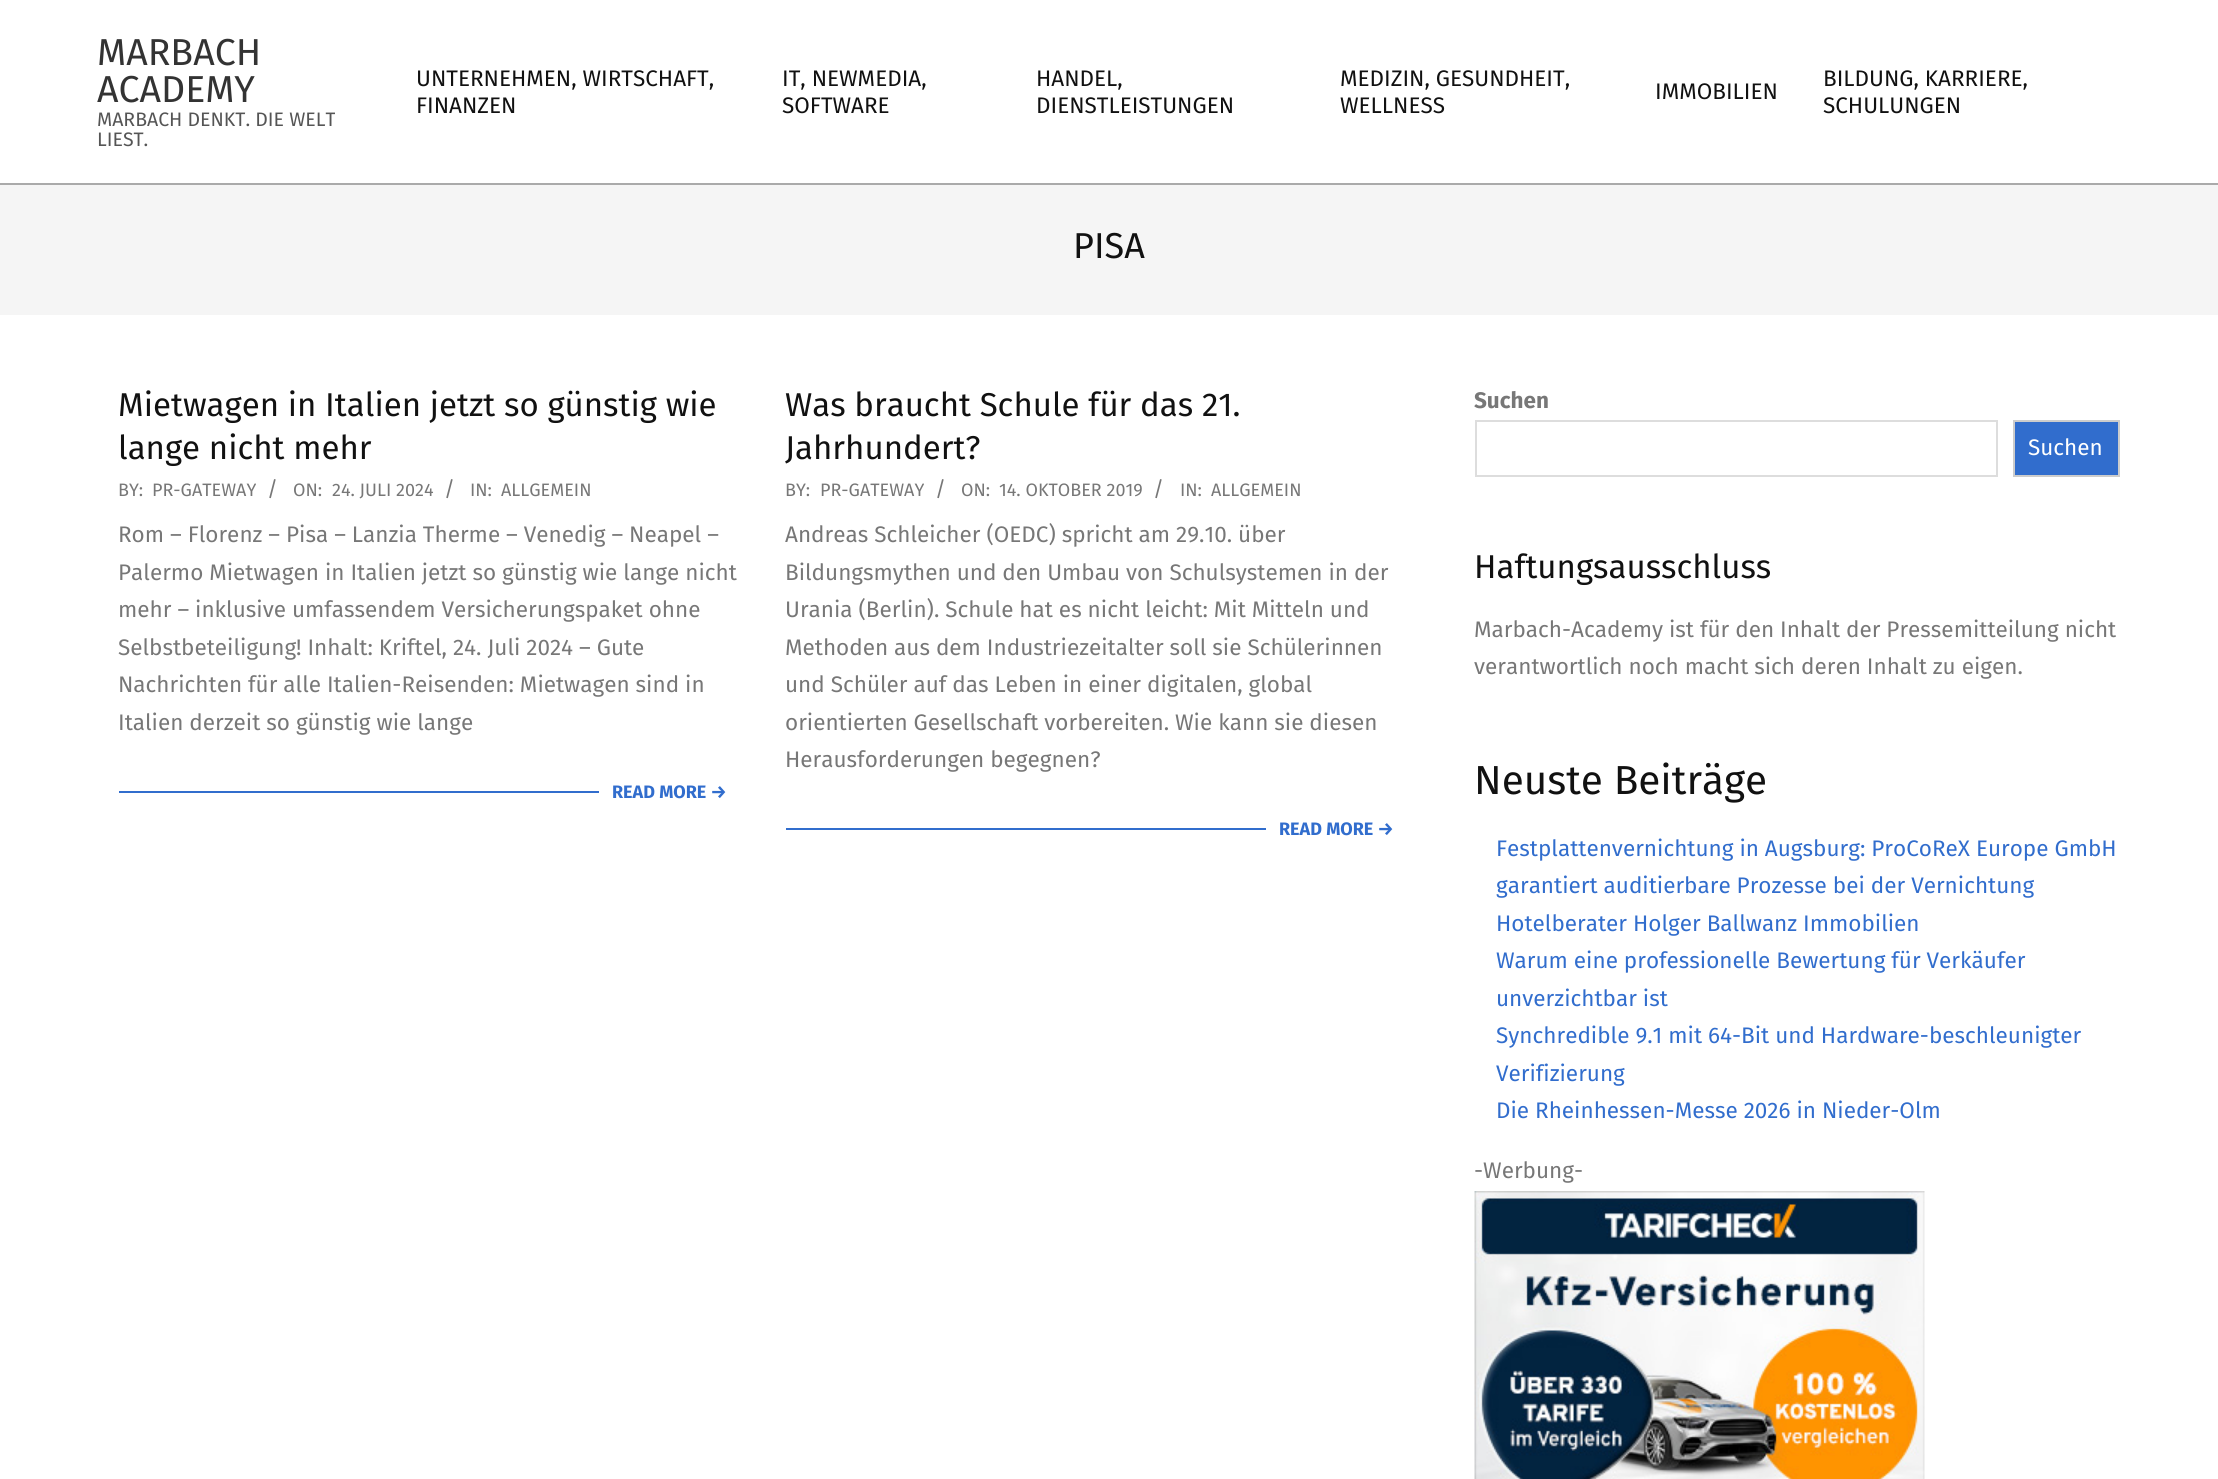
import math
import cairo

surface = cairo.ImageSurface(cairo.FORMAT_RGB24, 2218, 1479)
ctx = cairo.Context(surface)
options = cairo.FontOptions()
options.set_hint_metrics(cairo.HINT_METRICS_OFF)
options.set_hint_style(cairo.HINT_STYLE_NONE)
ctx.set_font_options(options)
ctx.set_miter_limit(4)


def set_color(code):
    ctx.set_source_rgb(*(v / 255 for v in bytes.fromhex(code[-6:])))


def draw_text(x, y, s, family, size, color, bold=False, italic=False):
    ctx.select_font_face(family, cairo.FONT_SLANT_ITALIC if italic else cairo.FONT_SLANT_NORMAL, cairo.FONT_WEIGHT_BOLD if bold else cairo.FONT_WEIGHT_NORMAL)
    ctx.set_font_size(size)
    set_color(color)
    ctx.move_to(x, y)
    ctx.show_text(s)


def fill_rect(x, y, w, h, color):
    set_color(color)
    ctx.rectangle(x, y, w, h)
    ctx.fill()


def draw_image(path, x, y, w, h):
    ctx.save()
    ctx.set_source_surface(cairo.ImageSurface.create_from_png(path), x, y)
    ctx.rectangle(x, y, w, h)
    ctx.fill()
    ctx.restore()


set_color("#ffffff")
ctx.paint()
fill_rect(0, 183, 2218, 2, "#aaaaaa")
draw_text(97, 65, "MARBACH", "Fira Sans", 37.5, "#333333")
draw_text(97, 102, "ACADEMY", "Fira Sans", 37.5, "#333333")
draw_text(97, 126, "MARBACH DENKT. DIE WELT", "Fira Sans", 19.5, "#555555")
draw_text(97, 146, "LIEST.", "Fira Sans", 19.5, "#555555")
draw_text(416, 86, "UNTERNEHMEN, WIRTSCHAFT,", "Fira Sans", 22.5, "#111111")
draw_text(416, 113, "FINANZEN", "Fira Sans", 22.5, "#111111")
draw_text(782, 86, "IT, NEWMEDIA,", "Fira Sans", 22.5, "#111111")
draw_text(782, 113, "SOFTWARE", "Fira Sans", 22.5, "#111111")
draw_text(1036, 86, "HANDEL,", "Fira Sans", 22.5, "#111111")
draw_text(1036, 113, "DIENSTLEISTUNGEN", "Fira Sans", 22.5, "#111111")
draw_text(1340, 86, "MEDIZIN, GESUNDHEIT,", "Fira Sans", 22.5, "#111111")
draw_text(1340, 113, "WELLNESS", "Fira Sans", 22.5, "#111111")
draw_text(1655, 99, "IMMOBILIEN", "Fira Sans", 22.5, "#111111")
draw_text(1823, 86, "BILDUNG, KARRIERE,", "Fira Sans", 22.5, "#111111")
draw_text(1823, 113, "SCHULUNGEN", "Fira Sans", 22.5, "#111111")
fill_rect(0, 185, 2218, 130, "#f5f5f5")
draw_text(1073, 258, "PISA", "Fira Sans", 36, "#111111")
draw_text(118, 416, "Mietwagen in Italien jetzt so günstig wie", "Fira Sans", 33, "#111111")
draw_text(118, 459, "lange nicht mehr", "Fira Sans", 33, "#111111")
draw_text(118, 496, "BY:", "Fira Sans", 18, "#777777")
draw_text(152, 496, "PR-GATEWAY", "Fira Sans", 18, "#777777")
draw_text(267, 496, "/", "Fira Sans", 21, "#777777")
draw_text(293, 496, "ON:", "Fira Sans", 18, "#777777")
draw_text(332, 496, "24. JULI 2024", "Fira Sans", 18, "#777777")
draw_text(444, 496, "/", "Fira Sans", 21, "#777777")
draw_text(470, 496, "IN:", "Fira Sans", 18, "#777777")
draw_text(501, 496, "ALLGEMEIN", "Fira Sans", 18, "#777777")
draw_text(118, 542, "Rom – Florenz – Pisa – Lanzia Therme – Venedig – Neapel –", "Fira Sans", 22.5, "#777777")
draw_text(118, 580, "Palermo Mietwagen in Italien jetzt so günstig wie lange nicht", "Fira Sans", 22.5, "#777777")
draw_text(118, 617, "mehr – inklusive umfassendem Versicherungspaket ohne", "Fira Sans", 22.5, "#777777")
draw_text(118, 655, "Selbstbeteiligung! Inhalt: Kriftel, 24. Juli 2024 – Gute", "Fira Sans", 22.5, "#777777")
draw_text(118, 692, "Nachrichten für alle Italien-Reisenden: Mietwagen sind in", "Fira Sans", 22.5, "#777777")
draw_text(118, 730, "Italien derzeit so günstig wie lange", "Fira Sans", 22.5, "#777777")
fill_rect(119, 791, 480, 2, "#316dcd")
draw_text(612, 798, "READ MORE →", "Fira Sans", 18, "#316dcd", bold=True)
draw_text(785, 416, "Was braucht Schule für das 21.", "Fira Sans", 33, "#111111")
draw_text(785, 459, "Jahrhundert?", "Fira Sans", 33, "#111111")
draw_text(785, 496, "BY:", "Fira Sans", 18, "#777777")
draw_text(820, 496, "PR-GATEWAY", "Fira Sans", 18, "#777777")
draw_text(935, 496, "/", "Fira Sans", 21, "#777777")
draw_text(961, 496, "ON:", "Fira Sans", 18, "#777777")
draw_text(999, 496, "14. OKTOBER 2019", "Fira Sans", 18, "#777777")
draw_text(1153, 496, "/", "Fira Sans", 21, "#777777")
draw_text(1180, 496, "IN:", "Fira Sans", 18, "#777777")
draw_text(1211, 496, "ALLGEMEIN", "Fira Sans", 18, "#777777")
draw_text(785, 542, "Andreas Schleicher (OEDC) spricht am 29.10. über", "Fira Sans", 22.5, "#777777")
draw_text(785, 580, "Bildungsmythen und den Umbau von Schulsystemen in der", "Fira Sans", 22.5, "#777777")
draw_text(785, 617, "Urania (Berlin). Schule hat es nicht leicht: Mit Mitteln und", "Fira Sans", 22.5, "#777777")
draw_text(785, 655, "Methoden aus dem Industriezeitalter soll sie Schülerinnen", "Fira Sans", 22.5, "#777777")
draw_text(785, 692, "und Schüler auf das Leben in einer digitalen, global", "Fira Sans", 22.5, "#777777")
draw_text(785, 730, "orientierten Gesellschaft vorbereiten. Wie kann sie diesen", "Fira Sans", 22.5, "#777777")
draw_text(785, 767, "Herausforderungen begegnen?", "Fira Sans", 22.5, "#777777")
fill_rect(786, 828, 480, 2, "#316dcd")
draw_text(1279, 835, "READ MORE →", "Fira Sans", 18, "#316dcd", bold=True)
draw_text(1474, 408, "Suchen", "Fira Sans", 22.5, "#777777", bold=True)
ctx.rectangle(1476, 421, 521, 55)
set_color("#dddddd")
ctx.stroke()
set_color("#316dcd")
ctx.rectangle(2014, 421, 105, 55)
ctx.fill_preserve()
set_color("#cccccc")
ctx.stroke()
draw_text(2028, 455, "Suchen", "Fira Sans", 22.5, "#ffffff")
draw_text(1474, 578, "Haftungsausschluss", "Fira Sans", 33, "#111111")
draw_text(1474, 637, "Marbach-Academy ist für den Inhalt der Pressemitteilung nicht", "Fira Sans", 22.5, "#777777")
draw_text(1474, 674, "verantwortlich noch macht sich deren Inhalt zu eigen.", "Fira Sans", 22.5, "#777777")
draw_text(1474, 794, "Neuste Beiträge", "Fira Sans", 40.5, "#111111")
draw_text(1496, 856, "Festplattenvernichtung in Augsburg: ProCoReX Europe GmbH", "Fira Sans", 22.5, "#316dcd")
draw_text(1496, 893, "garantiert auditierbare Prozesse bei der Vernichtung", "Fira Sans", 22.5, "#316dcd")
draw_text(1496, 931, "Hotelberater Holger Ballwanz Immobilien", "Fira Sans", 22.5, "#316dcd")
draw_text(1496, 968, "Warum eine professionelle Bewertung für Verkäufer", "Fira Sans", 22.5, "#316dcd")
draw_text(1496, 1006, "unverzichtbar ist", "Fira Sans", 22.5, "#316dcd")
draw_text(1496, 1043, "Synchredible 9.1 mit 64-Bit und Hardware-beschleunigter", "Fira Sans", 22.5, "#316dcd")
draw_text(1496, 1081, "Verifizierung", "Fira Sans", 22.5, "#316dcd")
draw_text(1496, 1118, "Die Rheinhessen-Messe 2026 in Nieder-Olm", "Fira Sans", 22.5, "#316dcd")
draw_text(1474, 1178, "-Werbung-", "Fira Sans", 22.5, "#777777")
draw_image("assets/img1.png", 1474, 1191, 451, 288)
surface.write_to_png("output.png")
